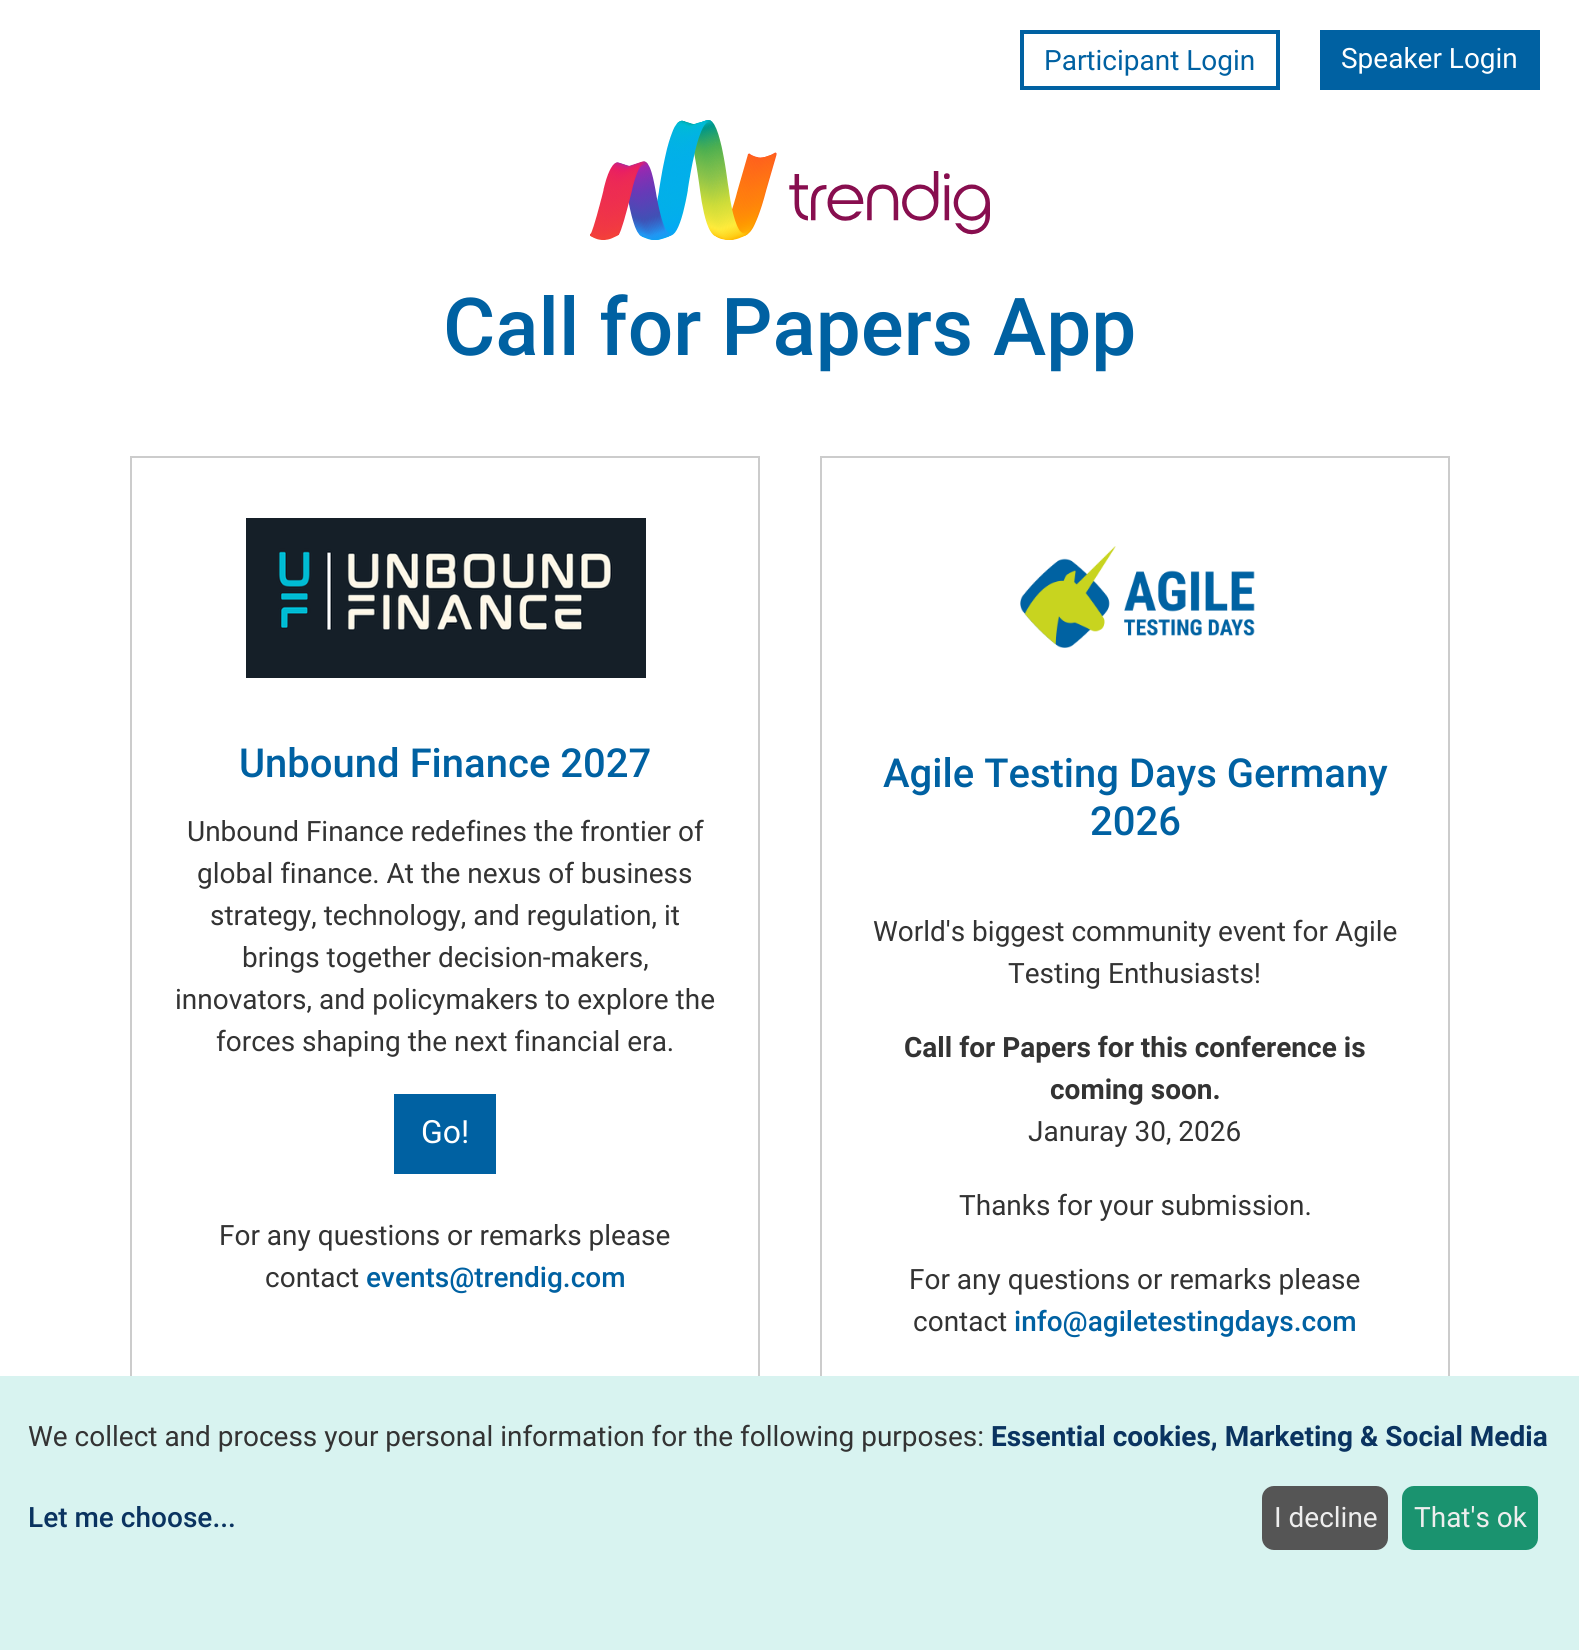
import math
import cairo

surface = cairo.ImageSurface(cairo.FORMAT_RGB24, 1579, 1650)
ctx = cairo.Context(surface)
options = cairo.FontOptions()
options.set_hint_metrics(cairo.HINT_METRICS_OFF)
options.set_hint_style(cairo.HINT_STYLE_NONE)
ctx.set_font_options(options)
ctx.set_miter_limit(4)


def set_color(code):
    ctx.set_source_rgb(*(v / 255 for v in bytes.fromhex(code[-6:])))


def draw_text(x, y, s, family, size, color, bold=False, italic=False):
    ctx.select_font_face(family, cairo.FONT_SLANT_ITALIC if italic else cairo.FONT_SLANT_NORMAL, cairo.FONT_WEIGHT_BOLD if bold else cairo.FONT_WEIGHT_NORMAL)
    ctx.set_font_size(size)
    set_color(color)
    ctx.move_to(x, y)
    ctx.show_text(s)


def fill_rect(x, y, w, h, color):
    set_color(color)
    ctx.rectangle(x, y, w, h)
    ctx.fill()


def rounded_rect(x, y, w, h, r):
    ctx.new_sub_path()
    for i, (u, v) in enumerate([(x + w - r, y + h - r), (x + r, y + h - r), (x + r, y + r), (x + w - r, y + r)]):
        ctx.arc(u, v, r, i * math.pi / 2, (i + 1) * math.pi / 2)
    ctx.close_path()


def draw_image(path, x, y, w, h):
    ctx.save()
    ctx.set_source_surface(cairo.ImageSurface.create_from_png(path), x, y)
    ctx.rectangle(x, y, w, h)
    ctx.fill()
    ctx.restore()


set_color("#ffffff")
ctx.paint()
ctx.rectangle(1022, 32, 256, 56)
set_color("#0061a2")
ctx.set_line_width(4)
ctx.stroke()
draw_text(1044, 70, "Participant Login", "Roboto", 28, "#0061a2")
fill_rect(1320, 30, 220, 60, "#0061a2")
draw_text(1341, 68, "Speaker Login", "Roboto", 28, "#ffffff")
draw_image("assets/img1.png", 590, 120, 400, 120)
draw_text(443, 355, "Call for Papers App", "Roboto Medium", 80, "#0061a2")
ctx.rectangle(131, 457, 628, 958)
set_color("#cccccc")
ctx.set_line_width(2)
ctx.stroke()
draw_image("assets/img2.png", 246, 518, 400, 160)
draw_text(239, 777, "Unbound Finance 2027", "Roboto Medium", 40, "#0061a2")
draw_text(187, 841, "Unbound Finance redefines the frontier of", "Roboto", 28, "#333333")
draw_text(197, 883, "global finance. At the nexus of business", "Roboto", 28, "#333333")
draw_text(210, 925, "strategy, technology, and regulation, it", "Roboto", 28, "#333333")
draw_text(242, 967, "brings together decision-makers,", "Roboto", 28, "#333333")
draw_text(175, 1009, "innovators, and policymakers to explore the", "Roboto", 28, "#333333")
draw_text(216, 1051, "forces shaping the next financial era.", "Roboto", 28, "#333333")
fill_rect(394, 1094, 102, 80, "#0061a2")
draw_text(421, 1143, "Go!", "Roboto", 32, "#ffffff")
draw_text(219, 1245, "For any questions or remarks please", "Roboto", 28, "#333333")
draw_text(265, 1287, "contact", "Roboto", 28, "#333333")
draw_text(366, 1287, "events@trendig.com", "Roboto Medium", 28, "#0061a2")
ctx.rectangle(821, 457, 628, 958)
set_color("#cccccc")
ctx.stroke()
draw_image("assets/img3.png", 1020, 546, 235, 102)
draw_text(883, 787, "Agile Testing Days Germany", "Roboto Medium", 40, "#0061a2")
draw_text(1090, 835, "2026", "Roboto Medium", 40, "#0061a2")
draw_text(873, 941, "World's biggest community event for Agile", "Roboto", 28, "#333333")
draw_text(1008, 983, "Testing Enthusiasts!", "Roboto", 28, "#333333")
draw_text(904, 1057, "Call for Papers for this conference is", "Roboto", 28, "#333333", bold=True)
draw_text(1050, 1099, "coming soon.", "Roboto", 28, "#333333", bold=True)
draw_text(1028, 1141, "Januray 30, 2026", "Roboto", 28, "#333333")
draw_text(959, 1215, "Thanks for your submission.", "Roboto", 28, "#333333")
draw_text(909, 1289, "For any questions or remarks please", "Roboto", 28, "#333333")
draw_text(913, 1331, "contact", "Roboto", 28, "#333333")
draw_text(1014, 1331, "info@agiletestingdays.com", "Roboto Medium", 28, "#0061a2")
fill_rect(0, 1376, 1579, 274, "#d8f3f0")
draw_text(28, 1446, "We collect and process your personal information for the following purposes:", "Roboto", 28, "#333333")
draw_text(991, 1446, "Essential cookies, Marketing & Social Media", "Roboto", 28, "#0a3360", bold=True)
draw_text(28, 1527, "Let me choose...", "Roboto Medium", 28, "#0a3360")
set_color("#555555")
rounded_rect(1262, 1486, 126, 64, 12)
ctx.fill()
draw_text(1274, 1527, "I decline", "Roboto", 28, "#eeeeee")
set_color("#1a936f")
rounded_rect(1402, 1486, 136, 64, 12)
ctx.fill()
draw_text(1414, 1527, "That's ok", "Roboto", 28, "#eeeeee")
surface.write_to_png("output.png")
